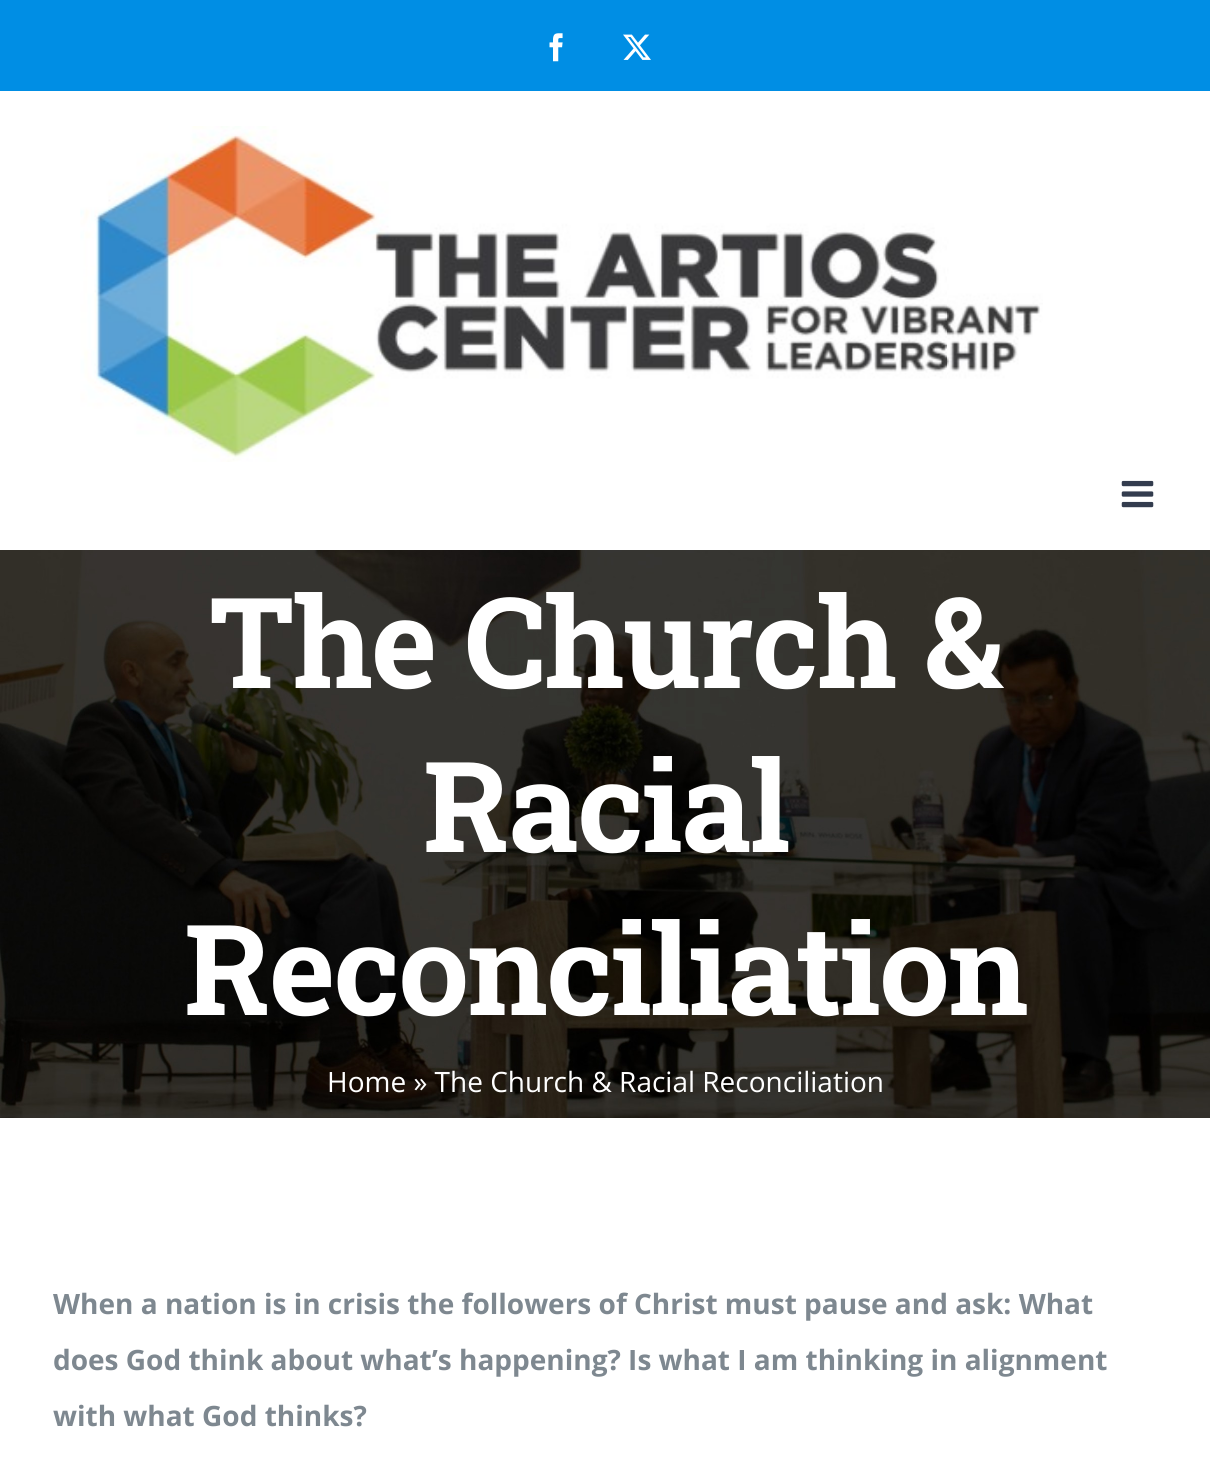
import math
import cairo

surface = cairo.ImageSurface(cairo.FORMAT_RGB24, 1210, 1474)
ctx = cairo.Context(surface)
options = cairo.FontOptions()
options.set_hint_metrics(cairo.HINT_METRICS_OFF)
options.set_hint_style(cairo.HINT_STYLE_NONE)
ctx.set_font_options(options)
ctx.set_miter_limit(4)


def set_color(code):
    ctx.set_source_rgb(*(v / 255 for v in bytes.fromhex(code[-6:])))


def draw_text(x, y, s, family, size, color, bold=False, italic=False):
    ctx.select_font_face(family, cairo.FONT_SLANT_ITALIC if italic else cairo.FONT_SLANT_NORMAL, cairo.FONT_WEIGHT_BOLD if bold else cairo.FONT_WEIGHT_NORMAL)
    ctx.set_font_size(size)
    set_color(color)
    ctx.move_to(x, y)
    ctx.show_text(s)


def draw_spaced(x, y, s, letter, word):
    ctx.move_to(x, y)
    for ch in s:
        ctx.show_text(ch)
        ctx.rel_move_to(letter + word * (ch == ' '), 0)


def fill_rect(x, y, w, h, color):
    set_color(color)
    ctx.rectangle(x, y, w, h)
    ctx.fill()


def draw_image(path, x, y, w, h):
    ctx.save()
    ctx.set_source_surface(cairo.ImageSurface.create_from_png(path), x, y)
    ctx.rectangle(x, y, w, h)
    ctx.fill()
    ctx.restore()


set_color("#ffffff")
ctx.paint()
fill_rect(0, 0, 1210, 91, "#008ee4")
draw_image("assets/img1.png", 549, 33, 14, 29)
draw_image("assets/img2.png", 623, 34, 28, 26)
draw_image("assets/img3.png", 80, 126, 963, 336)
draw_image("assets/img4.png", 1121, 480, 33, 28)
draw_image("assets/img5.png", 0, 550, 1210, 568)
ctx.select_font_face("Roboto Slab", cairo.FONT_SLANT_NORMAL, cairo.FONT_WEIGHT_BOLD)
ctx.set_font_size(126)
set_color("#ffffff")
draw_spaced(209, 688, "The Church &", -1.75, 0)
draw_spaced(423, 852, "Racial", -1.75, 0)
draw_spaced(184, 1015, "Reconciliation", -1.75, 0)
draw_text(327, 1092, "Home » The Church & Racial Reconciliation", "Open Sans", 28, "#ffffff")
draw_text(53, 1314, "When a nation is in crisis the followers of Christ must pause and ask: What", "Open Sans", 28, "#7e8890", bold=True)
draw_text(53, 1370, "does God think about what’s happening? Is what I am thinking in alignment", "Open Sans", 28, "#7e8890", bold=True)
draw_text(53, 1426, "with what God thinks?", "Open Sans", 28, "#7e8890", bold=True)
surface.write_to_png("output.png")
